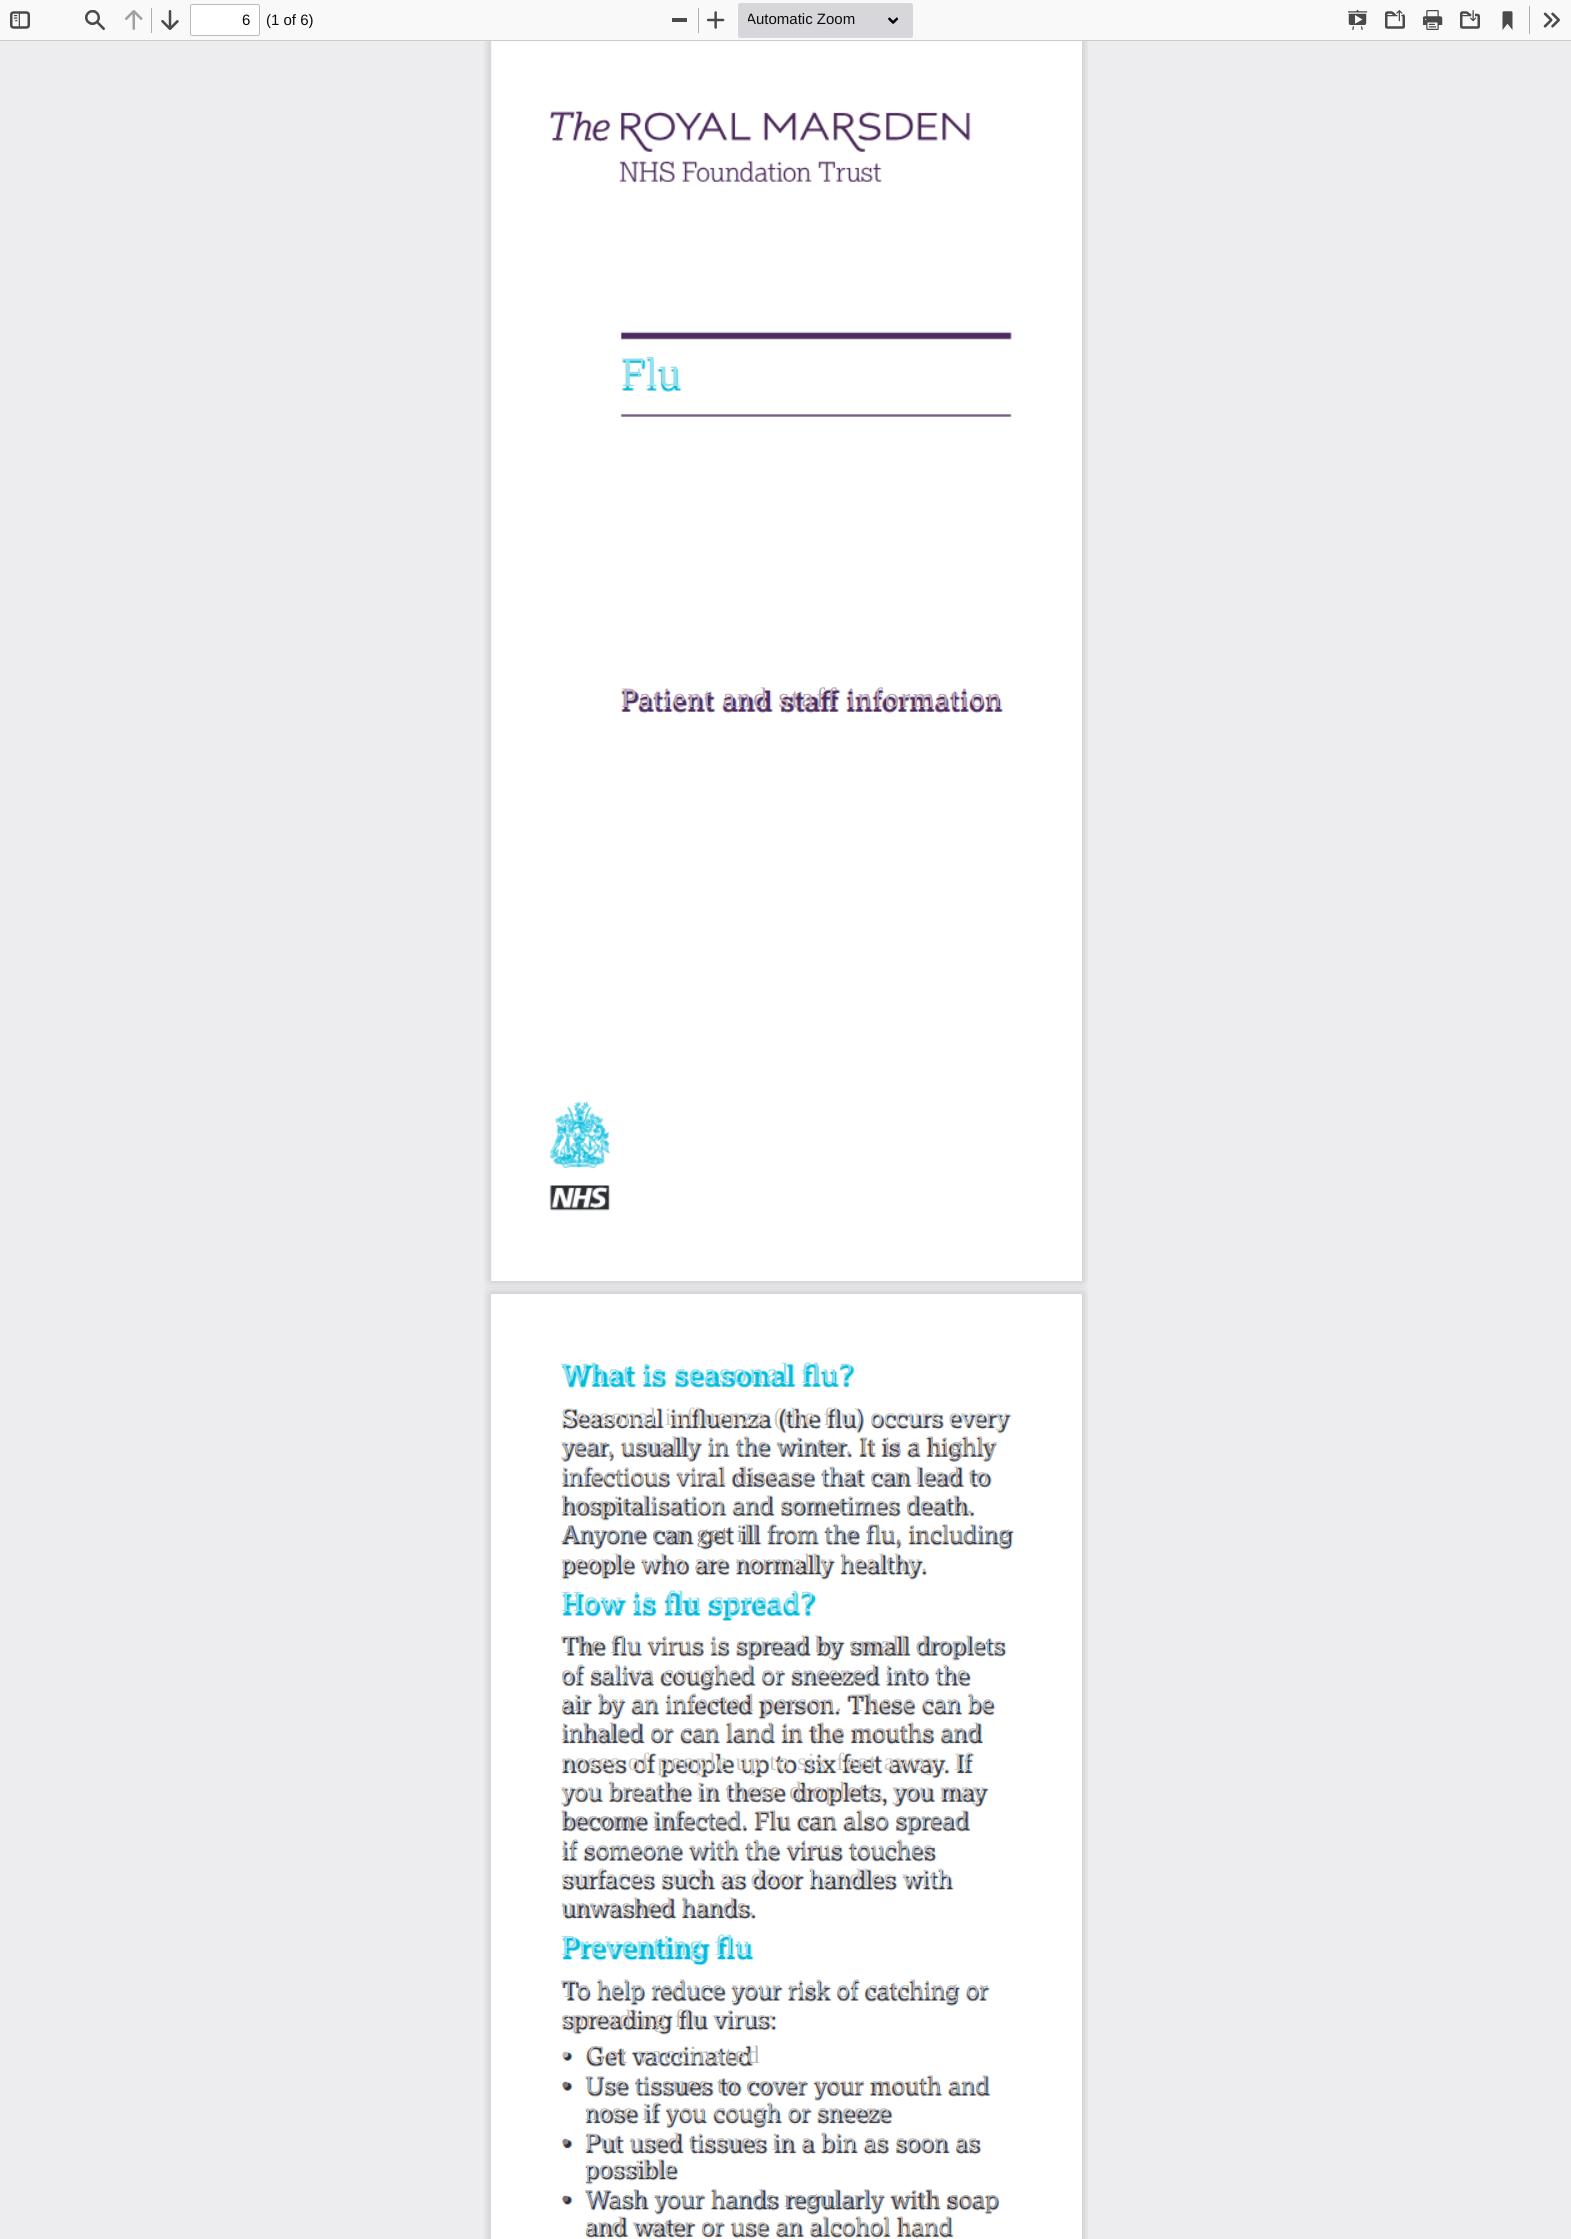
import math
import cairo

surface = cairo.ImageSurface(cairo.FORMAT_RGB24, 1571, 2239)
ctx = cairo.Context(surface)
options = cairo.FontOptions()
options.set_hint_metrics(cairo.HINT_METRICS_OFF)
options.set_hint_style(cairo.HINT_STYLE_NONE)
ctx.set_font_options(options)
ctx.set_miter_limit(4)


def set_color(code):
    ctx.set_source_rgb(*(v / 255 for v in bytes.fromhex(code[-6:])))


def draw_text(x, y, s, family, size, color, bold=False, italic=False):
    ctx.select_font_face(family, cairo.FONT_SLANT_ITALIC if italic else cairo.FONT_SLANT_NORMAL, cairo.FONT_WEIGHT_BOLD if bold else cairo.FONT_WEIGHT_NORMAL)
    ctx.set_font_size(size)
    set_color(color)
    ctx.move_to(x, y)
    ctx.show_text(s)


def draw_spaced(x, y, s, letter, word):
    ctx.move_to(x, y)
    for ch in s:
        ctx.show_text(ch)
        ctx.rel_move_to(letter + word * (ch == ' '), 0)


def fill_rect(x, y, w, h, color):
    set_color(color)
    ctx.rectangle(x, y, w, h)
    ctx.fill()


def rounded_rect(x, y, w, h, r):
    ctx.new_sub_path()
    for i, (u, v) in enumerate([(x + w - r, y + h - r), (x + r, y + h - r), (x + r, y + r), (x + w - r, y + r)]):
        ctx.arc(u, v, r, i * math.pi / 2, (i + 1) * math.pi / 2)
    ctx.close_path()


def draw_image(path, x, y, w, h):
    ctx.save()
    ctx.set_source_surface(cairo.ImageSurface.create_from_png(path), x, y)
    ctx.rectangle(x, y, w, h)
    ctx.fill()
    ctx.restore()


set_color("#ededf0")
ctx.paint()
fill_rect(0, 40, 1571, 1, "#cccccc")
fill_rect(0, 0, 1571, 40, "#f9f9fa")
draw_image("assets/img1.png", 10, 11, 20, 18)
draw_image("assets/img2.png", 85, 10, 20, 20)
draw_image("assets/img3.png", 125, 10, 18, 20)
fill_rect(151, 8, 1, 25, "#aeaeaf")
draw_image("assets/img4.png", 161, 10, 18, 20)
set_color("#ffffff")
rounded_rect(191, 5, 68, 30, 1)
ctx.fill()
rounded_rect(190.5, 4.5, 69, 31, 2)
set_color("#bbbbbc")
ctx.set_line_width(1)
ctx.stroke()
draw_text(242, 25, "6", "Liberation Sans", 15, "#060606")
draw_text(266, 25, "(1 of 6)", "Liberation Sans", 15, "#0c0c0d")
fill_rect(672, 18, 15, 4, "#4b4b4b")
fill_rect(698, 8, 1, 25, "#aeaeaf")
draw_image("assets/img5.png", 707, 11, 18, 18)
set_color("#d7d7db")
rounded_rect(738, 3, 175, 35, 2.5)
ctx.fill()
ctx.save()
ctx.rectangle(748, 10, 172, 20)
ctx.clip()
draw_text(746, 24, "Automatic Zoom", "Liberation Sans", 15, "#0c0c0d")
ctx.restore()
draw_image("assets/img6.png", 888, 17, 10, 7)
draw_image("assets/img7.png", 1348, 10, 20, 20)
draw_image("assets/img8.png", 1385, 10, 20, 19)
draw_image("assets/img9.png", 1423, 10, 20, 20)
draw_image("assets/img10.png", 1460, 10, 20, 19)
draw_image("assets/img11.png", 1502, 11, 11, 19)
fill_rect(1529, 6, 1, 28, "#aeaeaf")
draw_image("assets/img12.png", 1543, 12, 17, 16)
draw_image("assets/img13.png", 484, 41, 604, 1247)
draw_image("assets/img14.png", 491, 41, 591, 1240)
ctx.select_font_face("Liberation Serif")
ctx.set_font_size(42)
set_color("#95e0ee")
draw_spaced(621, 386, "Flu", 1.5, 0)
ctx.set_font_size(28.1)
set_color("#b8a6b7")
draw_spaced(621, 707, "Patient and staff information", 2.05, 0)
fill_rect(491, 1294, 590, 945, "#ffffff")
draw_image("assets/img15.png", 484, 1287, 604, 952)
draw_image("assets/img16.png", 491, 1294, 591, 945)
ctx.set_font_size(29.25)
set_color("#8cdeee")
draw_spaced(561, 1383, "What is seasonal flu?", 2.1, 0)
ctx.set_font_size(25)
set_color("#cac9c8")
draw_spaced(561, 1425, "Seasonal influenza (the flu) occurs every", 0.95, 0)
set_color("#afadaf")
draw_spaced(561, 1454, "year, usually in the winter. It is a highly", 0.9, 0)
set_color("#b9b8ba")
draw_spaced(561, 1484, "infectious viral disease that can lead to", 1, 0)
set_color("#bcb4ad")
draw_spaced(561, 1513, "hospitalisation and sometimes death.", 1.25, 0)
set_color("#9fa1a7")
draw_spaced(561, 1542, "Anyone can get ill from the flu, including", 0.8, 0)
set_color("#c3bcb7")
draw_spaced(561, 1571, "people who are normally healthy.", 1, 0)
ctx.set_font_size(29.25)
set_color("#95e0ee")
draw_spaced(561, 1611, "How is flu spread?", 1.9, 0)
ctx.set_font_size(25)
set_color("#b5b2b0")
draw_spaced(561, 1653, "The flu virus is spread by small droplets", 1, 0)
set_color("#b9b8ba")
draw_spaced(561, 1682, "of saliva coughed or sneezed into the", 1, 0)
draw_spaced(561, 1711, "air by an infected person. These can be", 1.1, 0)
set_color("#afadaf")
draw_spaced(561, 1740, "inhaled or can land in the mouths and", 1.2, 0)
set_color("#cac9c8")
draw_spaced(561, 1770, "noses of people up to six feet away. If", 0.8, 0)
set_color("#c3bcb7")
draw_spaced(561, 1799, "you breathe in these droplets, you may", 1, 0)
set_color("#afadaf")
draw_spaced(561, 1828, "become infected. Flu can also spread", 1.05, 0)
set_color("#b0b5bd")
draw_spaced(561, 1857, "if someone with the virus touches", 1.1, 0)
set_color("#cac9c8")
draw_spaced(561, 1886, "surfaces such as door handles with", 1.3, 0)
set_color("#bcb4ad")
draw_spaced(561, 1915, "unwashed hands.", 1.6, 0)
ctx.set_font_size(29.25)
set_color("#95e0ee")
draw_spaced(561, 1955, "Preventing flu", 1.75, 0)
ctx.set_font_size(25)
set_color("#b0b5bd")
draw_spaced(561, 1997, "To help reduce your risk of catching or", 0.95, 0)
set_color("#c3bcb7")
draw_spaced(561, 2027, "spreading flu virus:", 1, 0)
set_color("#b9b8ba")
draw_spaced(561, 2063, "•  Get vaccinated", 1.75, 0)
set_color("#7f7673")
draw_spaced(561, 2093, "•", 1, 0)
set_color("#afadaf")
draw_spaced(585, 2093, "Use tissues to cover your mouth and", 1.15, 0)
set_color("#b9b8ba")
draw_spaced(585, 2120, "nose if you cough or sneeze", 1, 0)
set_color("#8c8582")
draw_spaced(561, 2150, "•", 1, 0)
set_color("#bdb7b4")
draw_spaced(585, 2150, "Put used tissues in a bin as soon as", 1.3, 0)
set_color("#c3bcb7")
draw_spaced(585, 2177, "possible", 1.25, 0)
set_color("#776e6b")
draw_spaced(561, 2207, "•", 1, 0)
set_color("#9fa1a7")
draw_spaced(585, 2207, "Wash your hands regularly with soap", 1.2, 0)
set_color("#bcb4ad")
draw_spaced(585, 2234, "and water or use an alcohol hand", 1.2, 0)
surface.write_to_png("output.png")
